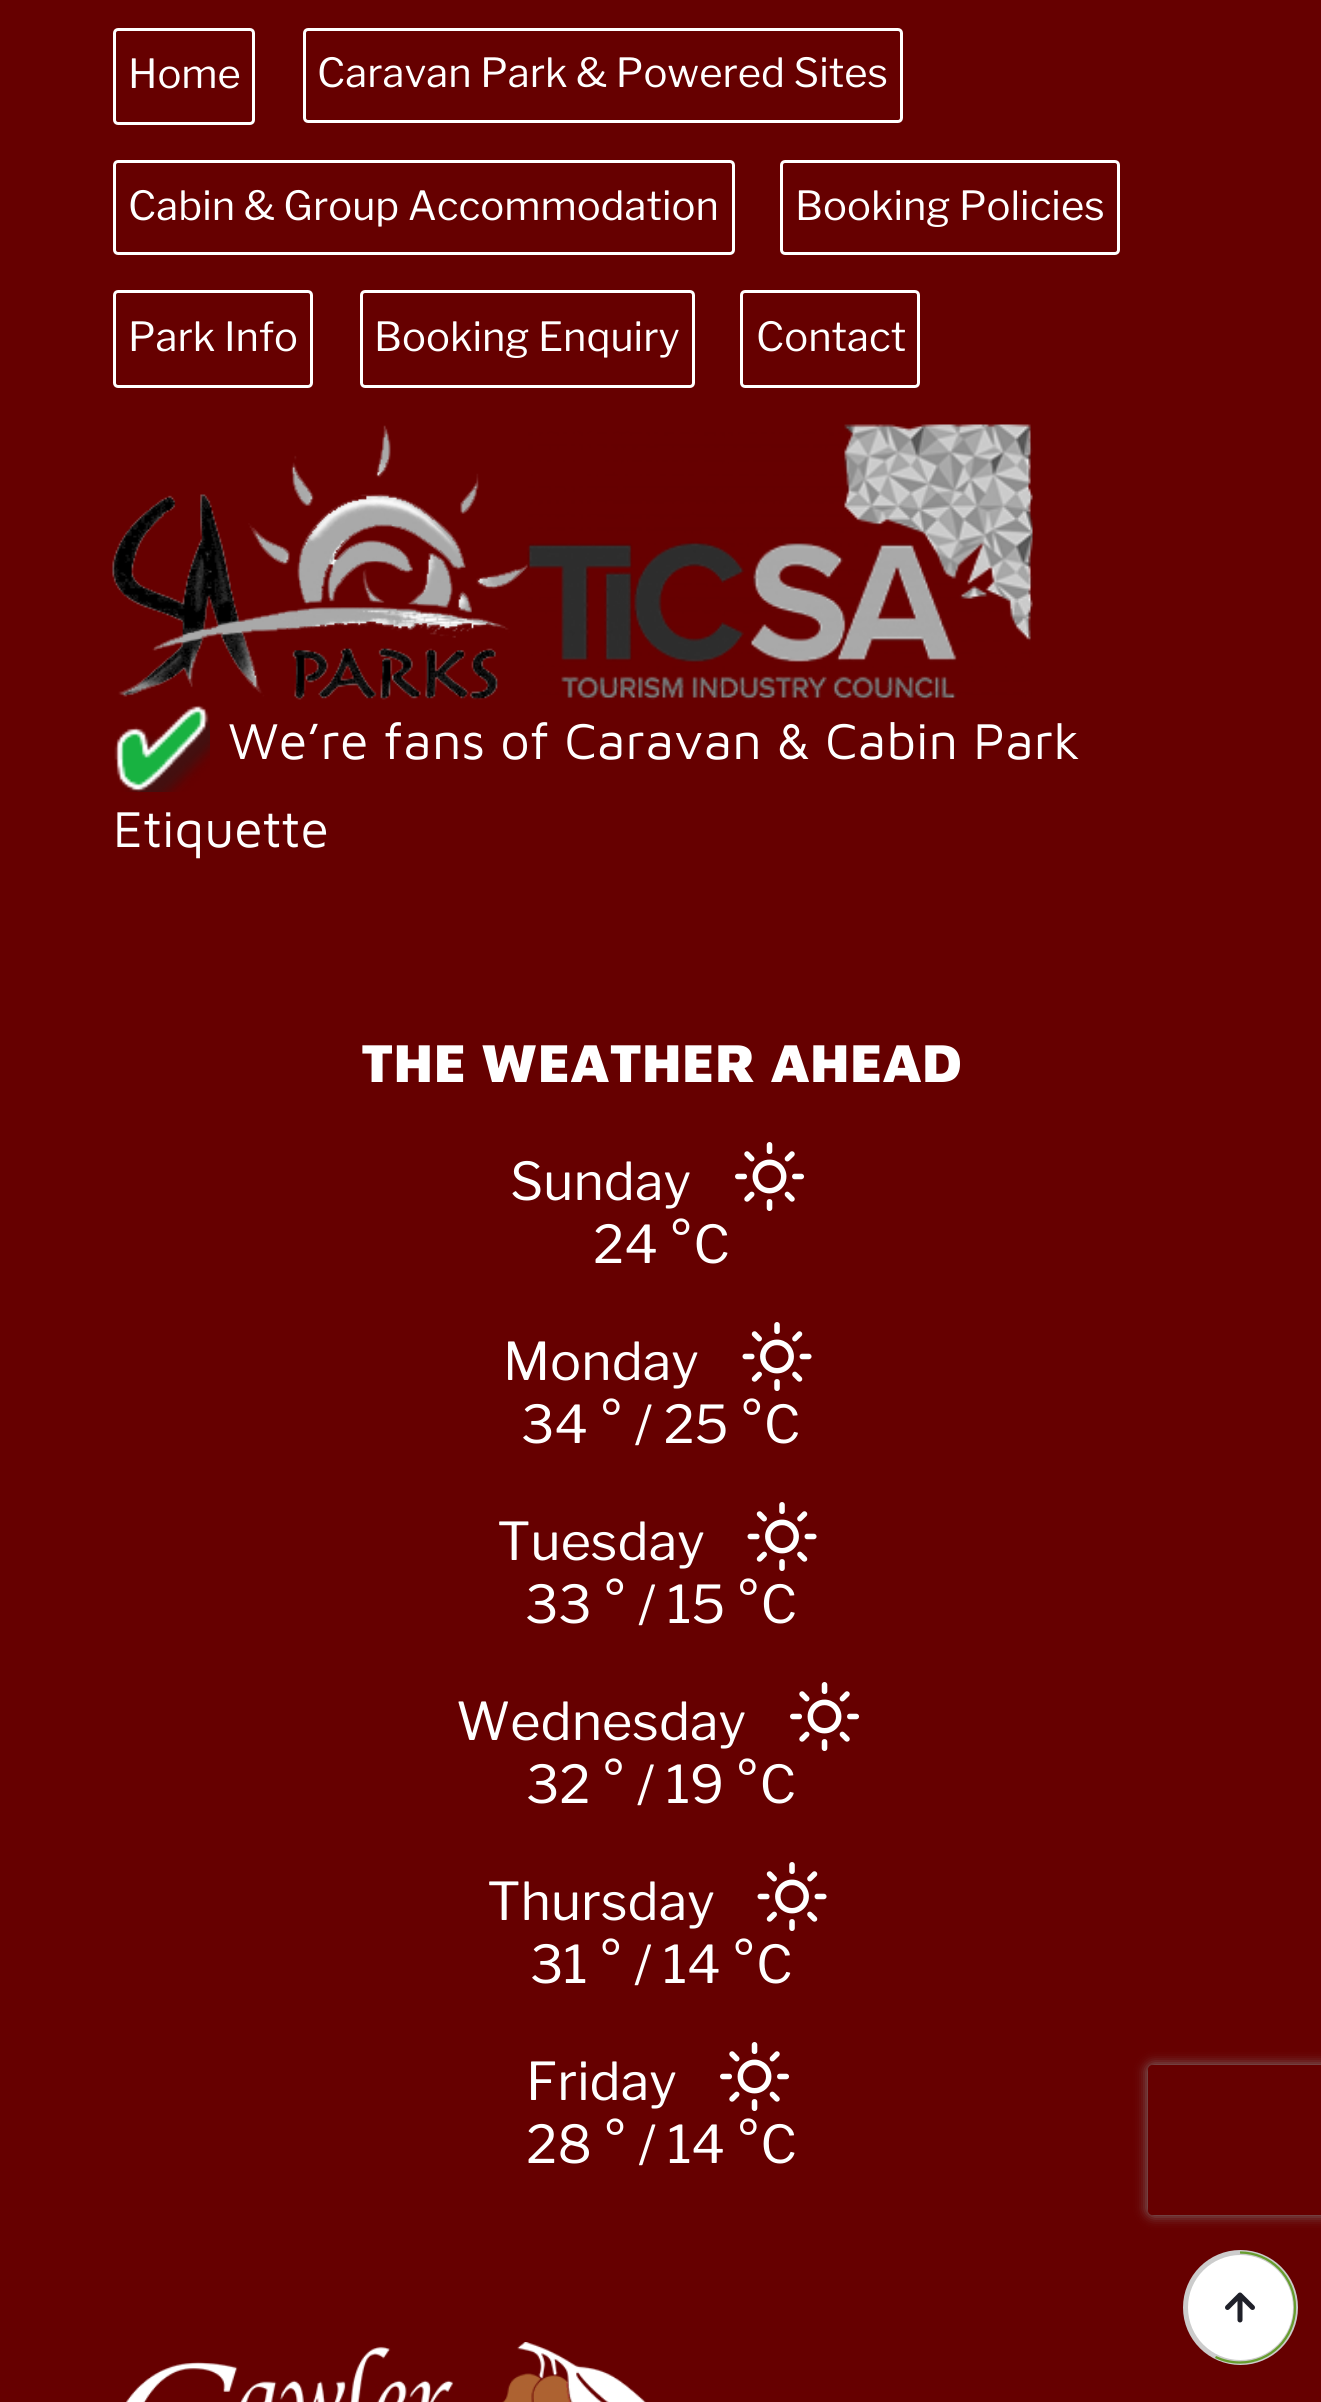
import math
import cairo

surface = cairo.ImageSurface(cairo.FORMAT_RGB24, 1321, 2402)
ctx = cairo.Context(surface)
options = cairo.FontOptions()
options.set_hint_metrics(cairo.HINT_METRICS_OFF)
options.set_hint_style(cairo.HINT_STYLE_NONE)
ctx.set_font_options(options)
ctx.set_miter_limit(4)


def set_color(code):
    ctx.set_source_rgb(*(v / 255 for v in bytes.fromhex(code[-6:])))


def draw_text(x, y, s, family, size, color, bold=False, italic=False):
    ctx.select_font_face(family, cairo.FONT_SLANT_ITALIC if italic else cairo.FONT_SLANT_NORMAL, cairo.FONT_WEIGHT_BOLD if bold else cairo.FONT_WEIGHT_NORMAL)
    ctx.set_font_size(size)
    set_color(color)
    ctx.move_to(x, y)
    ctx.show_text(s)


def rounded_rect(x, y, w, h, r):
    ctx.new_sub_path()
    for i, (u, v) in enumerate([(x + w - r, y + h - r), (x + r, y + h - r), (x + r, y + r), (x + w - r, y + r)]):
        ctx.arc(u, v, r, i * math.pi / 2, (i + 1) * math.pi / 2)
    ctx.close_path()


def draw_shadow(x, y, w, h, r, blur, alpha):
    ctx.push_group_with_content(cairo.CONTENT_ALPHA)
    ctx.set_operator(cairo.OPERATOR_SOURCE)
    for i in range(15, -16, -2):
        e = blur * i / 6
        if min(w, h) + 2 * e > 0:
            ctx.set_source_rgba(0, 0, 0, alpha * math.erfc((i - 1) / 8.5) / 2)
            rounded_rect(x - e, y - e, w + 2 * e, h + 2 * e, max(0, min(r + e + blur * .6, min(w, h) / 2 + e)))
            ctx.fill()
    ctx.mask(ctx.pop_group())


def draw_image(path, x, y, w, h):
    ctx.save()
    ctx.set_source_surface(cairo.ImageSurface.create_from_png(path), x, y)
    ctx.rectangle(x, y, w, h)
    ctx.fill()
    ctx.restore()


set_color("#660000")
ctx.paint()
rounded_rect(114.5, 29.5, 139, 94, 3.5)
set_color("#ffffff")
ctx.set_line_width(3)
ctx.stroke()
draw_text(128, 88, "Home", "Libre Franklin Thin", 40, "#ffffff")
rounded_rect(304.5, 29.5, 597, 92, 3.5)
ctx.stroke()
draw_text(317, 87, "Caravan Park & Powered Sites", "Libre Franklin Thin", 40, "#ffffff")
rounded_rect(114.5, 161.5, 619, 92, 3.5)
ctx.stroke()
draw_text(128, 220, "Cabin & Group Accommodation", "Libre Franklin Thin", 40, "#ffffff")
rounded_rect(781.5, 161.5, 337, 92, 3.5)
ctx.stroke()
draw_text(795, 220, "Booking Policies", "Libre Franklin Thin", 40, "#ffffff")
rounded_rect(114.5, 291.5, 197, 95, 3.5)
ctx.stroke()
draw_text(128, 351, "Park Info", "Libre Franklin Thin", 40, "#ffffff")
rounded_rect(361.5, 291.5, 332, 95, 3.5)
ctx.stroke()
draw_text(374, 351, "Booking Enquiry", "Libre Franklin Thin", 40, "#ffffff")
rounded_rect(741.5, 291.5, 177, 95, 3.5)
ctx.stroke()
draw_text(756, 351, "Contact", "Libre Franklin Thin", 40, "#ffffff")
draw_image("assets/img1.png", 112, 425, 416, 275)
draw_image("assets/img2.png", 527, 424, 506, 276)
draw_image("assets/img3.png", 114, 705, 96, 87)
draw_text(228, 759, "We’re fans of Caravan & Cabin Park", "Maven Pro", 52, "#ffffff")
draw_text(113, 847, "Etiquette", "Maven Pro", 52, "#ffffff")
draw_text(361, 1082, "THE WEATHER AHEAD", "Maven Pro Black", 55, "#ffffff")
draw_text(510, 1200, "Sunday", "Libre Franklin Thin", 52, "#ffffff")
draw_image("assets/img4.png", 735, 1142, 70, 69)
draw_text(593, 1263, "24 °C", "Libre Franklin Thin", 52, "#ffffff")
draw_text(503, 1380, "Monday", "Libre Franklin Thin", 52, "#ffffff")
draw_image("assets/img5.png", 742, 1322, 70, 69)
draw_text(521, 1443, "34 ° / 25 °C", "Libre Franklin Thin", 52, "#ffffff")
draw_text(497, 1560, "Tuesday", "Libre Franklin Thin", 52, "#ffffff")
draw_image("assets/img5.png", 747, 1502, 70, 69)
draw_text(525, 1623, "33 ° / 15 °C", "Libre Franklin Thin", 52, "#ffffff")
draw_text(456, 1740, "Wednesday", "Libre Franklin Thin", 52, "#ffffff")
draw_image("assets/img4.png", 790, 1682, 70, 69)
draw_text(526, 1803, "32 ° / 19 °C", "Libre Franklin Thin", 52, "#ffffff")
draw_text(487, 1920, "Thursday", "Libre Franklin Thin", 52, "#ffffff")
draw_image("assets/img5.png", 757, 1862, 70, 69)
draw_text(530, 1983, "31 ° / 14 °C", "Libre Franklin Thin", 52, "#ffffff")
draw_text(526, 2100, "Friday", "Libre Franklin Thin", 52, "#ffffff")
draw_image("assets/img4.png", 720, 2042, 70, 69)
draw_text(526, 2163, "28 ° / 14 °C", "Libre Franklin Thin", 52, "#ffffff")
draw_image("assets/img6.png", 126, 2342, 520, 60)
ctx.save()
ctx.set_fill_rule(cairo.FILL_RULE_EVEN_ODD)
ctx.new_path()
ctx.move_to(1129, 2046)
ctx.line_to(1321, 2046)
ctx.line_to(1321, 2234)
ctx.line_to(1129, 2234)
ctx.close_path()
ctx.move_to(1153, 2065)
ctx.line_to(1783, 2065)
ctx.curve_to(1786, 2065, 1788, 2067, 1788, 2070)
ctx.line_to(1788, 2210)
ctx.curve_to(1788, 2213, 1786, 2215, 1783, 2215)
ctx.line_to(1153, 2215)
ctx.curve_to(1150, 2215, 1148, 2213, 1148, 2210)
ctx.line_to(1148, 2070)
ctx.curve_to(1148, 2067, 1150, 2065, 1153, 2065)
ctx.close_path()
ctx.clip()
set_color("#808080")
draw_shadow(1148, 2065, 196, 150, 5, 6, 1)
ctx.restore()
ctx.arc(1240.5, 2307.5, 55, 0, 2 * math.pi)
ctx.fill_preserve()
set_color("#cccccc")
ctx.set_line_width(5)
ctx.stroke()
ctx.new_path()
ctx.move_to(1240, 2252.5)
ctx.curve_to(1270.5, 2252.5, 1295, 2277, 1295, 2307.5)
ctx.curve_to(1295, 2338, 1270.5, 2362.5, 1240, 2362.5)
ctx.curve_to(1231, 2362.5, 1223, 2360.5, 1215.5, 2357)
set_color("#679d2e")
ctx.set_line_width(2.3)
ctx.stroke()
draw_image("assets/img7.png", 1225, 2292, 30, 31)
surface.write_to_png("output.png")
